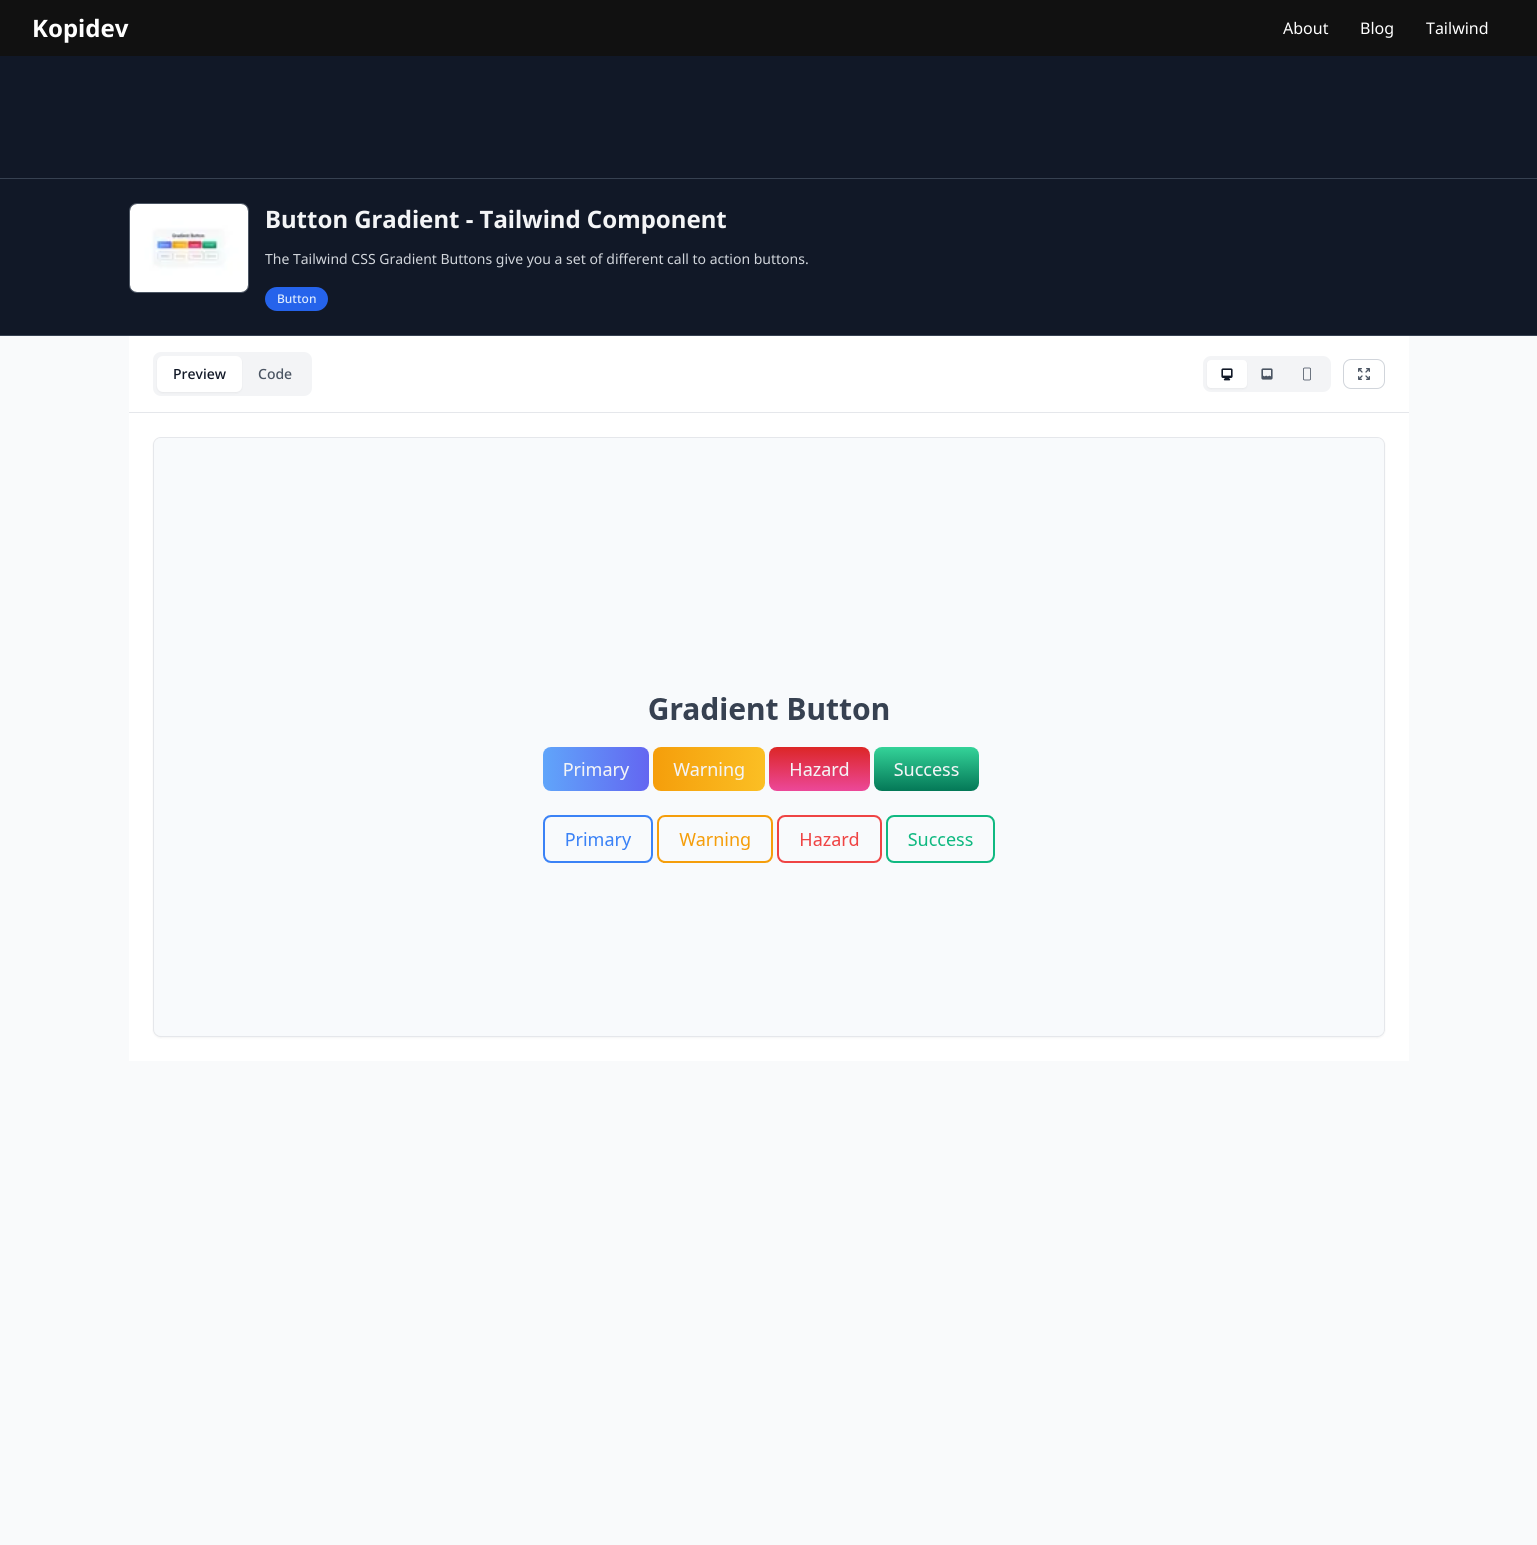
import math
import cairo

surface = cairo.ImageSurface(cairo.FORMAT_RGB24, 1537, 1545)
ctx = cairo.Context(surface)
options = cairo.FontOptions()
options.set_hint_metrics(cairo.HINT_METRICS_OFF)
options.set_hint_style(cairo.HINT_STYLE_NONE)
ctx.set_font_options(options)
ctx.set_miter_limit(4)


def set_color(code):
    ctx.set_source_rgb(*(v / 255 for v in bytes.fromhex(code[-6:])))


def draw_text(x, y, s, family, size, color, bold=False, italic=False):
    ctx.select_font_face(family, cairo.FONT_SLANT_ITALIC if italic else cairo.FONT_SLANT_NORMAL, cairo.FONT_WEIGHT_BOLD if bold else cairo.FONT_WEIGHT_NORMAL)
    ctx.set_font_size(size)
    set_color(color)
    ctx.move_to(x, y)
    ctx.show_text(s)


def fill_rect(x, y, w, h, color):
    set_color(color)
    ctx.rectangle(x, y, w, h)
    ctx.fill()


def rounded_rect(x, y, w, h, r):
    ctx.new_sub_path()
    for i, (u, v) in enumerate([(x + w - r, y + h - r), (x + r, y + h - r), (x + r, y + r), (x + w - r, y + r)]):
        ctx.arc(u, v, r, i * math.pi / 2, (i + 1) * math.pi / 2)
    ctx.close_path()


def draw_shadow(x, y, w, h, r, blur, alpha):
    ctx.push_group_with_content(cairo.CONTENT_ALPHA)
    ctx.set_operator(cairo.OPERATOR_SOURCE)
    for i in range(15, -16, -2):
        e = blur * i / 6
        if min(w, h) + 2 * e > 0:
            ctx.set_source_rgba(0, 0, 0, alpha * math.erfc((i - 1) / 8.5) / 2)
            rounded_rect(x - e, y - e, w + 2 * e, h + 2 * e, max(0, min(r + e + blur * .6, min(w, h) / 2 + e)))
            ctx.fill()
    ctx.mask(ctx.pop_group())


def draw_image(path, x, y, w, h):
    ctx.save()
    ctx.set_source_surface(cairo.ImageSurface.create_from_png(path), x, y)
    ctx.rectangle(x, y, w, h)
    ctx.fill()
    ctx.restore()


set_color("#111111")
ctx.paint()
draw_text(32, 37, "Kopidev", "Noto Sans", 24, "#ffffff", bold=True)
draw_text(1283, 34, "About", "Noto Sans", 16, "#ffffff")
draw_text(1360, 34, "Blog", "Noto Sans", 16, "#ffffff")
draw_text(1426, 34, "Tailwind", "Noto Sans", 16, "#ffffff")
fill_rect(0, 56, 1537, 122, "#111827")
fill_rect(0, 178, 1537, 1, "#374151")
fill_rect(0, 179, 1537, 156, "#111827")
fill_rect(0, 335, 1537, 1, "#374151")
rounded_rect(129.5, 203.5, 119, 89, 7.5)
set_color("#4b5563")
ctx.set_line_width(1)
ctx.stroke()
draw_image("assets/img1.png", 130, 204, 118, 88)
draw_text(265, 228, "Button Gradient - Tailwind Component", "Noto Sans", 24, "#f3f4f6", bold=True)
draw_text(265, 264, "The Tailwind CSS Gradient Buttons give you a set of different call to action buttons.", "Noto Sans", 14, "#d1d5db")
set_color("#2563eb")
rounded_rect(265, 287, 63, 24, 12)
ctx.fill()
draw_text(277, 303, "Button", "Noto Sans Medium", 12, "#dbeafe")
fill_rect(0, 336, 1537, 1209, "#f9fafb")
fill_rect(129, 336, 1280, 76, "#ffffff")
fill_rect(129, 412, 1280, 1, "#e5e7eb")
set_color("#f3f4f6")
rounded_rect(153, 352, 159, 44, 8)
ctx.fill()
set_color("#000000")
draw_shadow(157, 357, 85, 36, 6, 1, 0.05)
set_color("#ffffff")
rounded_rect(157, 356, 85, 36, 6)
ctx.fill()
draw_text(173, 379, "Preview", "Noto Sans Medium", 14, "#111827")
draw_text(258, 379, "Code", "Noto Sans Medium", 14, "#4b5563")
set_color("#f3f4f6")
rounded_rect(1203, 356, 128, 36, 8)
ctx.fill()
set_color("#000000")
draw_shadow(1207, 361, 40, 28, 4, 1, 0.05)
set_color("#ffffff")
rounded_rect(1207, 360, 40, 28, 4)
ctx.fill()
draw_image("assets/img2.png", 1221, 368, 12, 13)
draw_image("assets/img3.png", 1261, 368, 12, 12)
draw_image("assets/img4.png", 1303, 367, 8, 14)
rounded_rect(1343.5, 359.5, 41, 29, 7.5)
set_color("#d1d5db")
ctx.stroke()
draw_image("assets/img5.png", 1358, 368, 12, 12)
fill_rect(129, 413, 1280, 648, "#ffffff")
set_color("#000000")
draw_shadow(153, 438, 1232, 600, 8, 1, 0.05)
rounded_rect(153.5, 437.5, 1231, 599, 7.5)
set_color("#e5e7eb")
ctx.stroke()
draw_image("assets/img6.png", 154, 438, 1230, 598)
surface.write_to_png("output.png")
